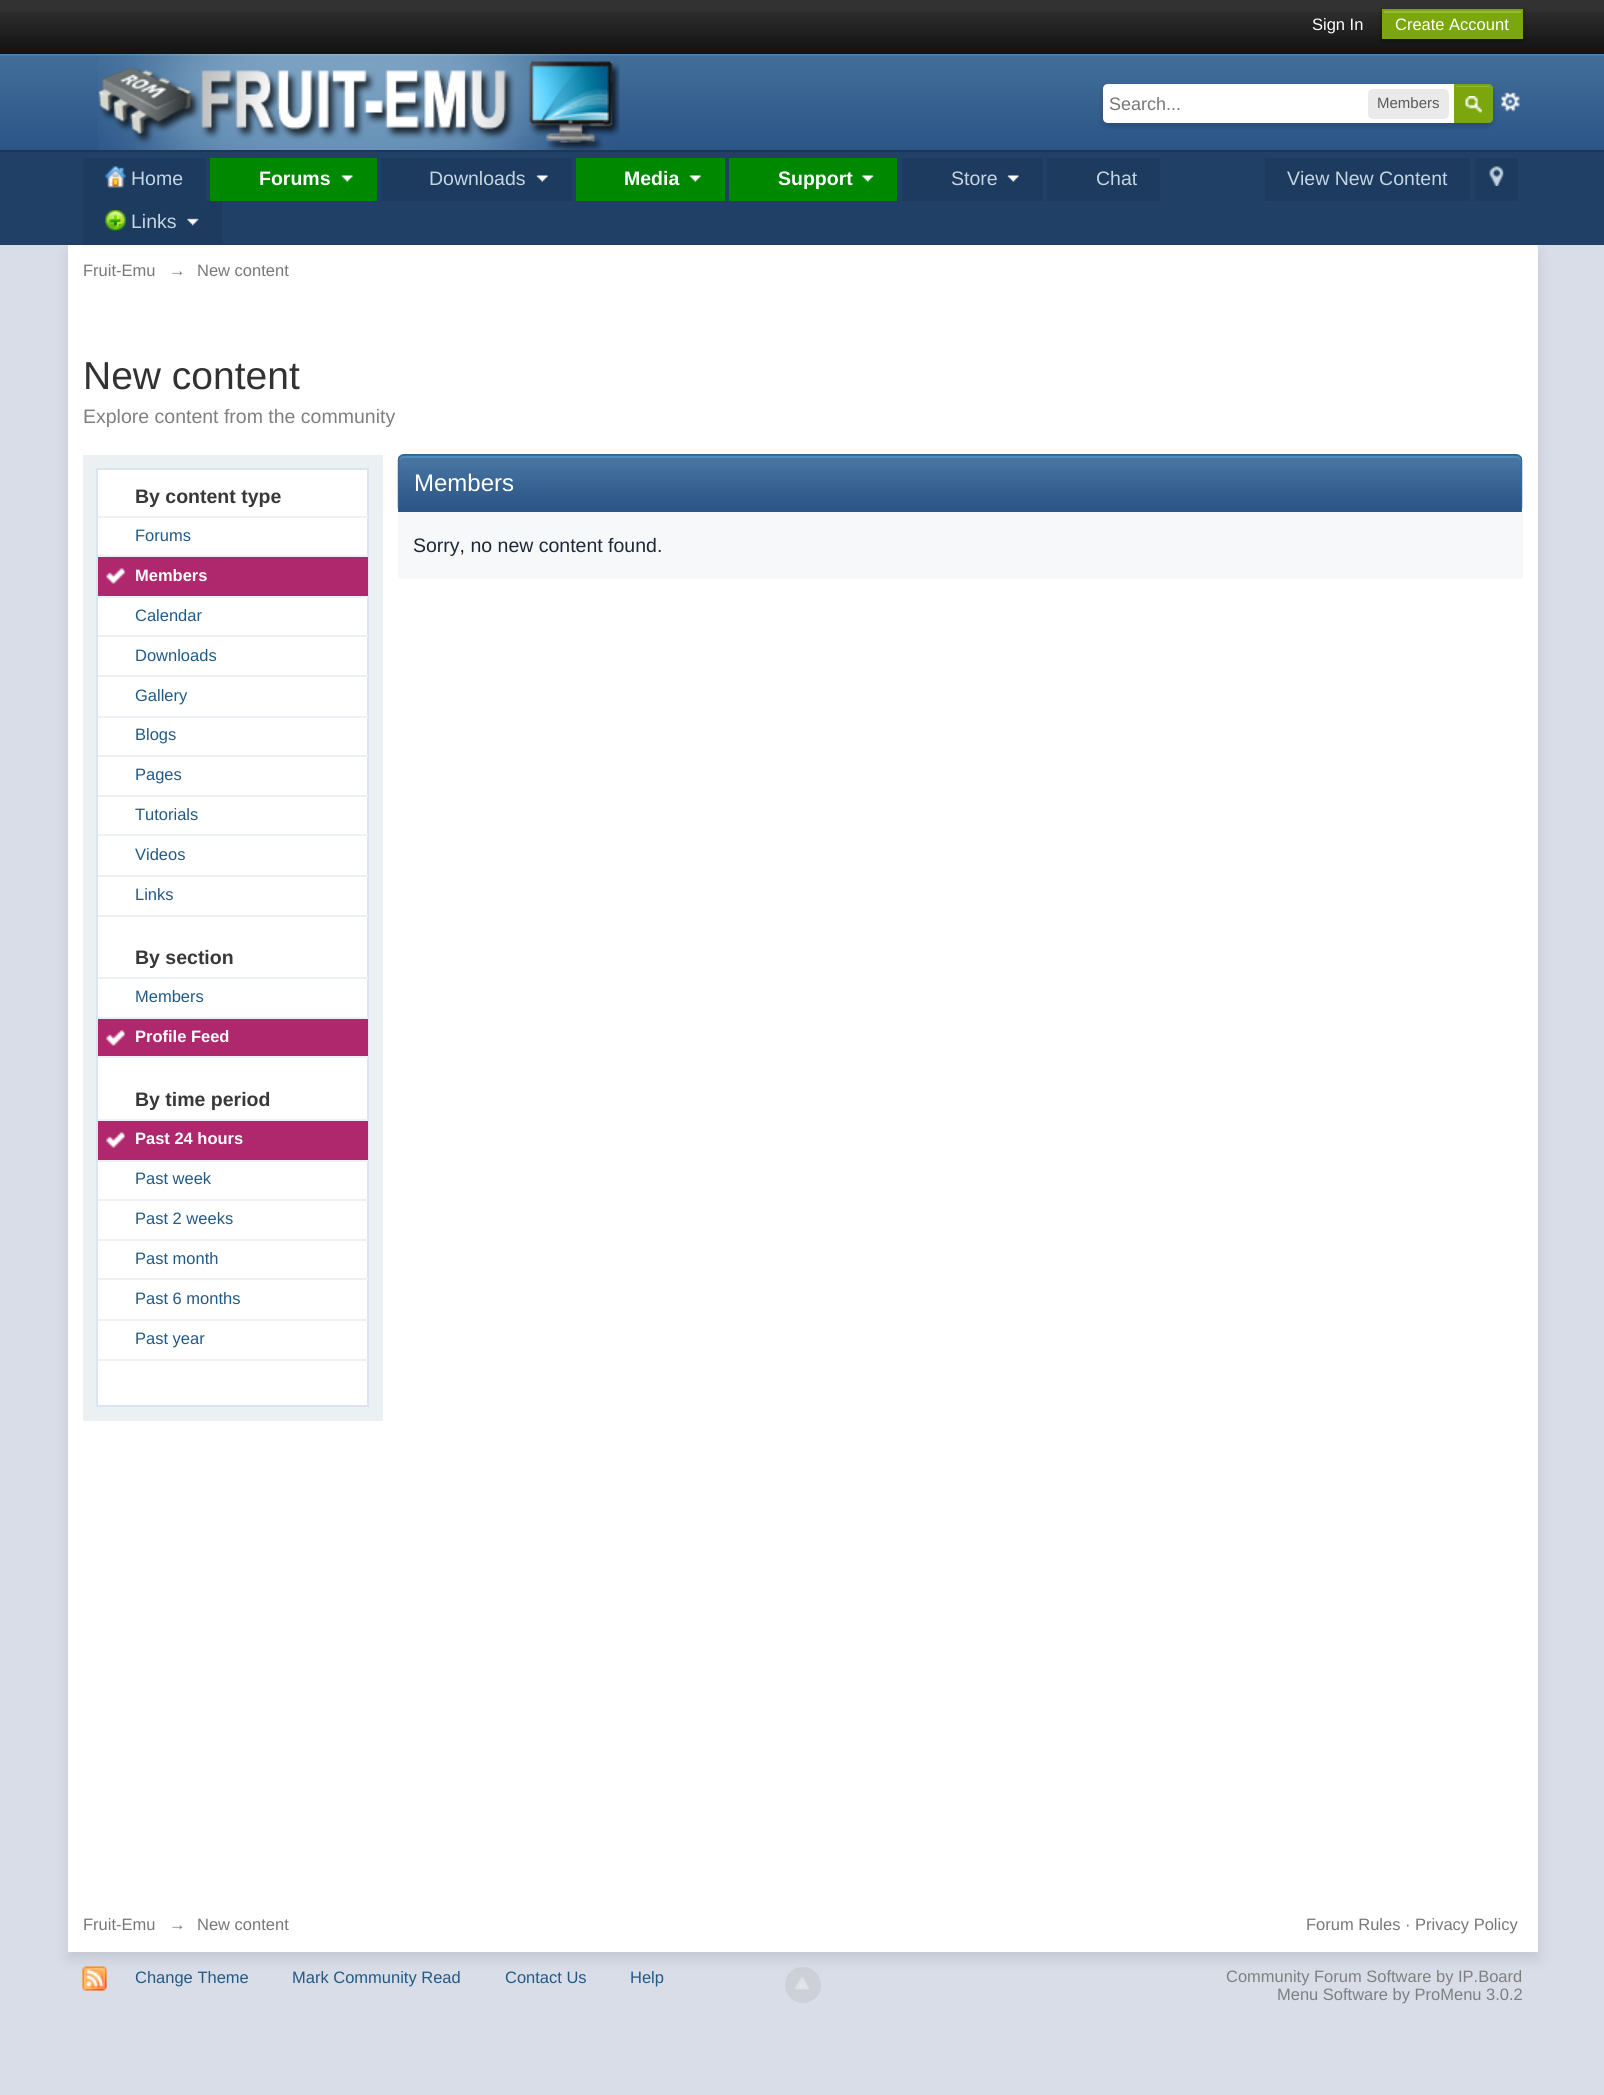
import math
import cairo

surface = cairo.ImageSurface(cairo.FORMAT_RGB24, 1604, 2095)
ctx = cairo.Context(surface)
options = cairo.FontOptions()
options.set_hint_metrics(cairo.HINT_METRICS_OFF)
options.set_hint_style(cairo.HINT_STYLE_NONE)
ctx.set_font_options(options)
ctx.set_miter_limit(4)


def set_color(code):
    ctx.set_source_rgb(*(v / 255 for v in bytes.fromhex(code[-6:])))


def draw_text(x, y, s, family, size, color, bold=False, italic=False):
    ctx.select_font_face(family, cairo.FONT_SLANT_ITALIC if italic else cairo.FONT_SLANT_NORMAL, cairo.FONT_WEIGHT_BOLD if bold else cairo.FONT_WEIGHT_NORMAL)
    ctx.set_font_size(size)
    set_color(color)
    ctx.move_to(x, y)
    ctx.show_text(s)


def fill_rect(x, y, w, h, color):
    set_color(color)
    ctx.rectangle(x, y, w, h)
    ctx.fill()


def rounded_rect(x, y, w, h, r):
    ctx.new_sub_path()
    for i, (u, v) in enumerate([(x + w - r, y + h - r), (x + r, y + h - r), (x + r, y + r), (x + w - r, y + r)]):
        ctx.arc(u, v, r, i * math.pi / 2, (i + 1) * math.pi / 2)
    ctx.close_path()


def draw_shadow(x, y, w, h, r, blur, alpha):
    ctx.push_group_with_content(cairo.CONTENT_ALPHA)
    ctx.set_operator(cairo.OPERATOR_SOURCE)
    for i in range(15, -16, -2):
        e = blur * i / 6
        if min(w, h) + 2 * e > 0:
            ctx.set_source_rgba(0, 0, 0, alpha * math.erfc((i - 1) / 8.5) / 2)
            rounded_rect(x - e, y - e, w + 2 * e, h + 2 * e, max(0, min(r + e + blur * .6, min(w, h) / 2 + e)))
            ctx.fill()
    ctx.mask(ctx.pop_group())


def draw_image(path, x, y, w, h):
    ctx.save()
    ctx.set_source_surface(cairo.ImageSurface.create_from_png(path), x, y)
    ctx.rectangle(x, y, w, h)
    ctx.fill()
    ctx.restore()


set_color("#d8dde8")
ctx.paint()
fill_rect(0, 0, 1604, 12, "#323232")
draw_image("assets/img1.png", 0, 12, 1604, 42)
draw_text(1312, 30, "Sign In", "Liberation Sans", 16.5, "#ffffff")
set_color("#000000")
draw_shadow(1382, 11, 141, 30, 0, 3, 0.4)
fill_rect(1384, 13, 137, 24, "#7ba60d")
fill_rect(1383, 11, 138, 2, "#95b83d")
ctx.rectangle(1383, 10, 139, 28)
set_color("#7ba60d")
ctx.stroke()
draw_text(1395, 30, "Create Account", "Liberation Sans", 16.5, "#ffffff")
draw_image("assets/img2.png", 0, 54, 1604, 96)
fill_rect(0, 150, 1604, 2, "#1b3759")
draw_image("assets/img3.png", 98, 54, 522, 96)
draw_image("assets/img5.png", 1501, 92, 19, 20)
set_color("#000000")
draw_shadow(1103, 87, 390, 39, 6, 3, 0.2)
set_color("#ffffff")
ctx.new_path()
ctx.move_to(1108, 84)
ctx.line_to(1487, 84)
ctx.curve_to(1490.5, 84, 1493, 86.5, 1493, 90)
ctx.line_to(1493, 117)
ctx.curve_to(1493, 120.5, 1490.5, 123, 1487, 123)
ctx.line_to(1108, 123)
ctx.curve_to(1105, 123, 1103, 121, 1103, 118)
ctx.line_to(1103, 89)
ctx.curve_to(1103, 86, 1105, 84, 1108, 84)
ctx.close_path()
ctx.fill()
draw_text(1109, 110, "Search...", "Liberation Sans", 18, "#777777")
set_color("#eaeaea")
rounded_rect(1368, 89, 81, 30, 5)
ctx.fill()
draw_text(1377, 108, "Members", "Liberation Sans", 15, "#5a5a5a")
set_color("#7ba60d")
ctx.new_path()
ctx.move_to(1454, 84)
ctx.line_to(1488, 84)
ctx.curve_to(1491, 84, 1493, 86, 1493, 89)
ctx.line_to(1493, 118)
ctx.curve_to(1493, 121, 1491, 123, 1488, 123)
ctx.line_to(1454, 123)
ctx.close_path()
ctx.fill()
draw_image("assets/img4.png", 1465, 96, 17, 17)
set_color("#95b83d")
ctx.new_path()
ctx.move_to(1455, 87)
ctx.line_to(1488, 87)
ctx.curve_to(1490, 87, 1491, 88, 1491, 90)
ctx.line_to(1491, 89)
ctx.curve_to(1491, 87.5, 1489.5, 86, 1488, 86)
ctx.line_to(1455, 86)
ctx.close_path()
ctx.fill()
ctx.new_path()
ctx.move_to(1455, 85)
ctx.line_to(1488, 85)
ctx.curve_to(1490, 85, 1492, 87, 1492, 89)
ctx.line_to(1492, 118)
ctx.curve_to(1492, 120, 1490, 122, 1488, 122)
ctx.line_to(1455, 122)
ctx.close_path()
set_color("#7ba60d")
ctx.stroke()
fill_rect(0, 152, 1604, 93, "#204066")
fill_rect(83, 158, 123, 43, "#1c3b5f")
draw_image("assets/img6.png", 105, 166, 21, 22)
draw_text(131, 185, "Home", "Liberation Sans", 19.5, "#c5d5e2")
fill_rect(210, 158, 167, 43, "#008800")
draw_text(259, 185, "Forums", "Liberation Sans", 19.5, "#ffffff", bold=True)
draw_image("assets/img7.png", 341, 175, 12, 7)
fill_rect(381, 158, 191, 43, "#1c3b5f")
draw_text(429, 185, "Downloads", "Liberation Sans", 19.5, "#c5d5e2")
draw_image("assets/img8.png", 536, 175, 12, 7)
fill_rect(576, 158, 149, 43, "#008800")
draw_text(624, 185, "Media", "Liberation Sans", 19.5, "#ffffff", bold=True)
draw_image("assets/img9.png", 689, 175, 12, 7)
fill_rect(729, 158, 168, 43, "#008800")
draw_text(778, 185, "Support", "Liberation Sans", 19.5, "#ffffff", bold=True)
draw_image("assets/img10.png", 862, 175, 12, 7)
fill_rect(902, 158, 141, 43, "#1c3b5f")
draw_text(951, 185, "Store", "Liberation Sans", 19.5, "#c5d5e2")
draw_image("assets/img11.png", 1007, 175, 12, 7)
fill_rect(1047, 158, 113, 43, "#1c3b5f")
draw_text(1096, 185, "Chat", "Liberation Sans", 19.5, "#c5d5e2")
fill_rect(1265, 158, 205, 43, "#1c3b5f")
draw_text(1287, 185, "View New Content", "Liberation Sans", 19.5, "#c5d5e2")
fill_rect(1475, 158, 43, 43, "#1c3b5f")
draw_image("assets/img12.png", 1489, 166, 15, 20)
set_color("#000000")
draw_shadow(68, 252, 1470, 1707, 0, 7, 0.1)
fill_rect(83, 201, 139, 44, "#1c3b5f")
draw_image("assets/img13.png", 187, 218, 12, 8)
draw_image("assets/img14.png", 105, 210, 21, 21)
draw_text(131, 228, "Links", "Liberation Sans", 19.5, "#c5d5e2")
fill_rect(68, 245, 1470, 1707, "#ffffff")
draw_text(83, 276, "Fruit-Emu", "Liberation Sans", 16.5, "#777777")
draw_text(169, 276, "→", "Liberation Sans", 16.5, "#777777")
draw_text(197, 276, "New content", "Liberation Sans", 16.5, "#777777")
draw_text(83, 389, "New content", "Liberation Sans", 39, "#323232")
draw_text(83, 423, "Explore content from the community", "Liberation Sans", 19.5, "#7f7f7f")
fill_rect(83, 455, 300, 966, "#ebf0f3")
set_color("#ffffff")
ctx.rectangle(97, 469, 271, 937)
ctx.fill_preserve()
set_color("#dbe4ef")
ctx.stroke()
draw_text(135, 503, "By content type", "Liberation Sans", 19.5, "#383838", bold=True)
fill_rect(98, 516, 270, 2, "#edf1f5")
fill_rect(98, 555, 270, 2, "#edf1f5")
draw_text(135, 541, "Forums", "Liberation Sans", 16.5, "#225985")
fill_rect(98, 596, 270, 2, "#edf1f5")
fill_rect(98, 557, 270, 39, "#af286d")
draw_image("assets/img15.png", 106, 568, 19, 16)
draw_text(135, 581, "Members", "Liberation Sans", 16.5, "#ffffff", bold=True)
fill_rect(98, 635, 270, 2, "#edf1f5")
draw_text(135, 621, "Calendar", "Liberation Sans", 16.5, "#225985")
fill_rect(98, 675, 270, 2, "#edf1f5")
draw_text(135, 661, "Downloads", "Liberation Sans", 16.5, "#225985")
fill_rect(98, 716, 270, 2, "#edf1f5")
draw_text(135, 701, "Gallery", "Liberation Sans", 16.5, "#225985")
fill_rect(98, 755, 270, 2, "#edf1f5")
draw_text(135, 740, "Blogs", "Liberation Sans", 16.5, "#225985")
fill_rect(98, 795, 270, 2, "#edf1f5")
draw_text(135, 780, "Pages", "Liberation Sans", 16.5, "#225985")
fill_rect(98, 834, 270, 2, "#edf1f5")
draw_text(135, 820, "Tutorials", "Liberation Sans", 16.5, "#225985")
fill_rect(98, 875, 270, 2, "#edf1f5")
draw_text(135, 860, "Videos", "Liberation Sans", 16.5, "#225985")
fill_rect(98, 915, 270, 2, "#edf1f5")
draw_text(135, 900, "Links", "Liberation Sans", 16.5, "#225985")
draw_text(135, 964, "By section", "Liberation Sans", 19.5, "#383838", bold=True)
fill_rect(98, 977, 270, 2, "#edf1f5")
fill_rect(98, 1017, 270, 2, "#edf1f5")
draw_text(135, 1002, "Members", "Liberation Sans", 16.5, "#225985")
fill_rect(98, 1056, 270, 2, "#edf1f5")
fill_rect(98, 1019, 270, 37, "#af286d")
draw_image("assets/img15.png", 106, 1030, 19, 16)
draw_text(135, 1042, "Profile Feed", "Liberation Sans", 16.5, "#ffffff", bold=True)
draw_text(135, 1106, "By time period", "Liberation Sans", 19.5, "#383838", bold=True)
fill_rect(98, 1119, 270, 2, "#edf1f5")
fill_rect(98, 1160, 270, 2, "#edf1f5")
fill_rect(98, 1121, 270, 39, "#af286d")
draw_image("assets/img15.png", 106, 1132, 19, 16)
draw_text(135, 1144, "Past 24 hours", "Liberation Sans", 16.5, "#ffffff", bold=True)
fill_rect(98, 1199, 270, 2, "#edf1f5")
draw_text(135, 1184, "Past week", "Liberation Sans", 16.5, "#225985")
fill_rect(98, 1239, 270, 2, "#edf1f5")
draw_text(135, 1224, "Past 2 weeks", "Liberation Sans", 16.5, "#225985")
fill_rect(98, 1278, 270, 2, "#edf1f5")
draw_text(135, 1264, "Past month", "Liberation Sans", 16.5, "#225985")
fill_rect(98, 1319, 270, 2, "#edf1f5")
draw_text(135, 1304, "Past 6 months", "Liberation Sans", 16.5, "#225985")
fill_rect(98, 1359, 270, 2, "#edf1f5")
draw_text(135, 1344, "Past year", "Liberation Sans", 16.5, "#225985")
set_color("#2c5687")
ctx.new_path()
ctx.move_to(404, 456)
ctx.line_to(1516, 456)
ctx.curve_to(1519, 456, 1521, 458, 1521, 461)
ctx.line_to(1521, 512)
ctx.line_to(399, 512)
ctx.line_to(399, 461)
ctx.curve_to(399, 458, 401, 456, 404, 456)
ctx.close_path()
ctx.fill()
draw_image("assets/img16.png", 397, 456, 1126, 53)
set_color("#528cbc")
ctx.new_path()
ctx.move_to(404, 458)
ctx.line_to(1516, 458)
ctx.curve_to(1519, 458, 1521, 460, 1521, 462)
ctx.curve_to(1521, 459, 1519, 456, 1516, 456)
ctx.line_to(404, 456)
ctx.curve_to(401, 456, 399, 459, 399, 462)
ctx.curve_to(399, 460, 401, 458, 404, 458)
ctx.close_path()
ctx.fill()
set_color("#316897")
ctx.set_fill_rule(cairo.FILL_RULE_EVEN_ODD)
ctx.new_path()
ctx.move_to(404, 454)
ctx.line_to(1516, 454)
ctx.curve_to(1520, 454, 1522, 457, 1522, 460)
ctx.line_to(1522, 512)
ctx.line_to(398, 512)
ctx.line_to(398, 460)
ctx.curve_to(398, 457, 400, 454, 404, 454)
ctx.close_path()
ctx.move_to(404, 456)
ctx.line_to(1516, 456)
ctx.curve_to(1519, 456, 1521, 458, 1521, 460)
ctx.line_to(1521, 512)
ctx.line_to(399, 512)
ctx.line_to(399, 460)
ctx.curve_to(399, 458, 401, 456, 404, 456)
ctx.close_path()
ctx.fill()
draw_text(414, 491, "Members", "Liberation Sans", 24, "#ffffff")
fill_rect(398, 512, 1125, 67, "#f6f8fa")
draw_text(413, 552, "Sorry, no new content found.", "Liberation Sans", 19.5, "#1c2837")
draw_text(83, 1930, "Fruit-Emu", "Liberation Sans", 16.5, "#777777")
draw_text(169, 1930, "→", "Liberation Sans", 16.5, "#777777")
draw_text(197, 1930, "New content", "Liberation Sans", 16.5, "#777777")
draw_text(1306, 1930, "Forum Rules ·", "Liberation Sans", 16.5, "#777777")
draw_text(1415, 1930, "Privacy Policy", "Liberation Sans", 16.5, "#777777")
draw_image("assets/img17.png", 82, 1966, 25, 25)
draw_text(135, 1983, "Change Theme", "Liberation Sans", 16.5, "#225985")
draw_text(292, 1983, "Mark Community Read", "Liberation Sans", 16.5, "#225985")
draw_text(505, 1983, "Contact Us", "Liberation Sans", 16.5, "#225985")
draw_text(630, 1983, "Help", "Liberation Sans", 16.5, "#225985")
ctx.set_source_rgba(0.741, 0.741, 0.741, 0.4)
ctx.new_path()
ctx.arc(803, 1985, 18, 0, 2 * math.pi)
ctx.fill()
draw_image("assets/img18.png", 795, 1977, 14, 13)
draw_text(1226, 1982, "Community Forum Software by IP.Board", "Liberation Sans", 16.5, "#7f7f7f")
draw_text(1277, 2000, "Menu Software by ProMenu 3.0.2", "Liberation Sans", 16.5, "#7f7f7f")
surface.write_to_png("output.png")
